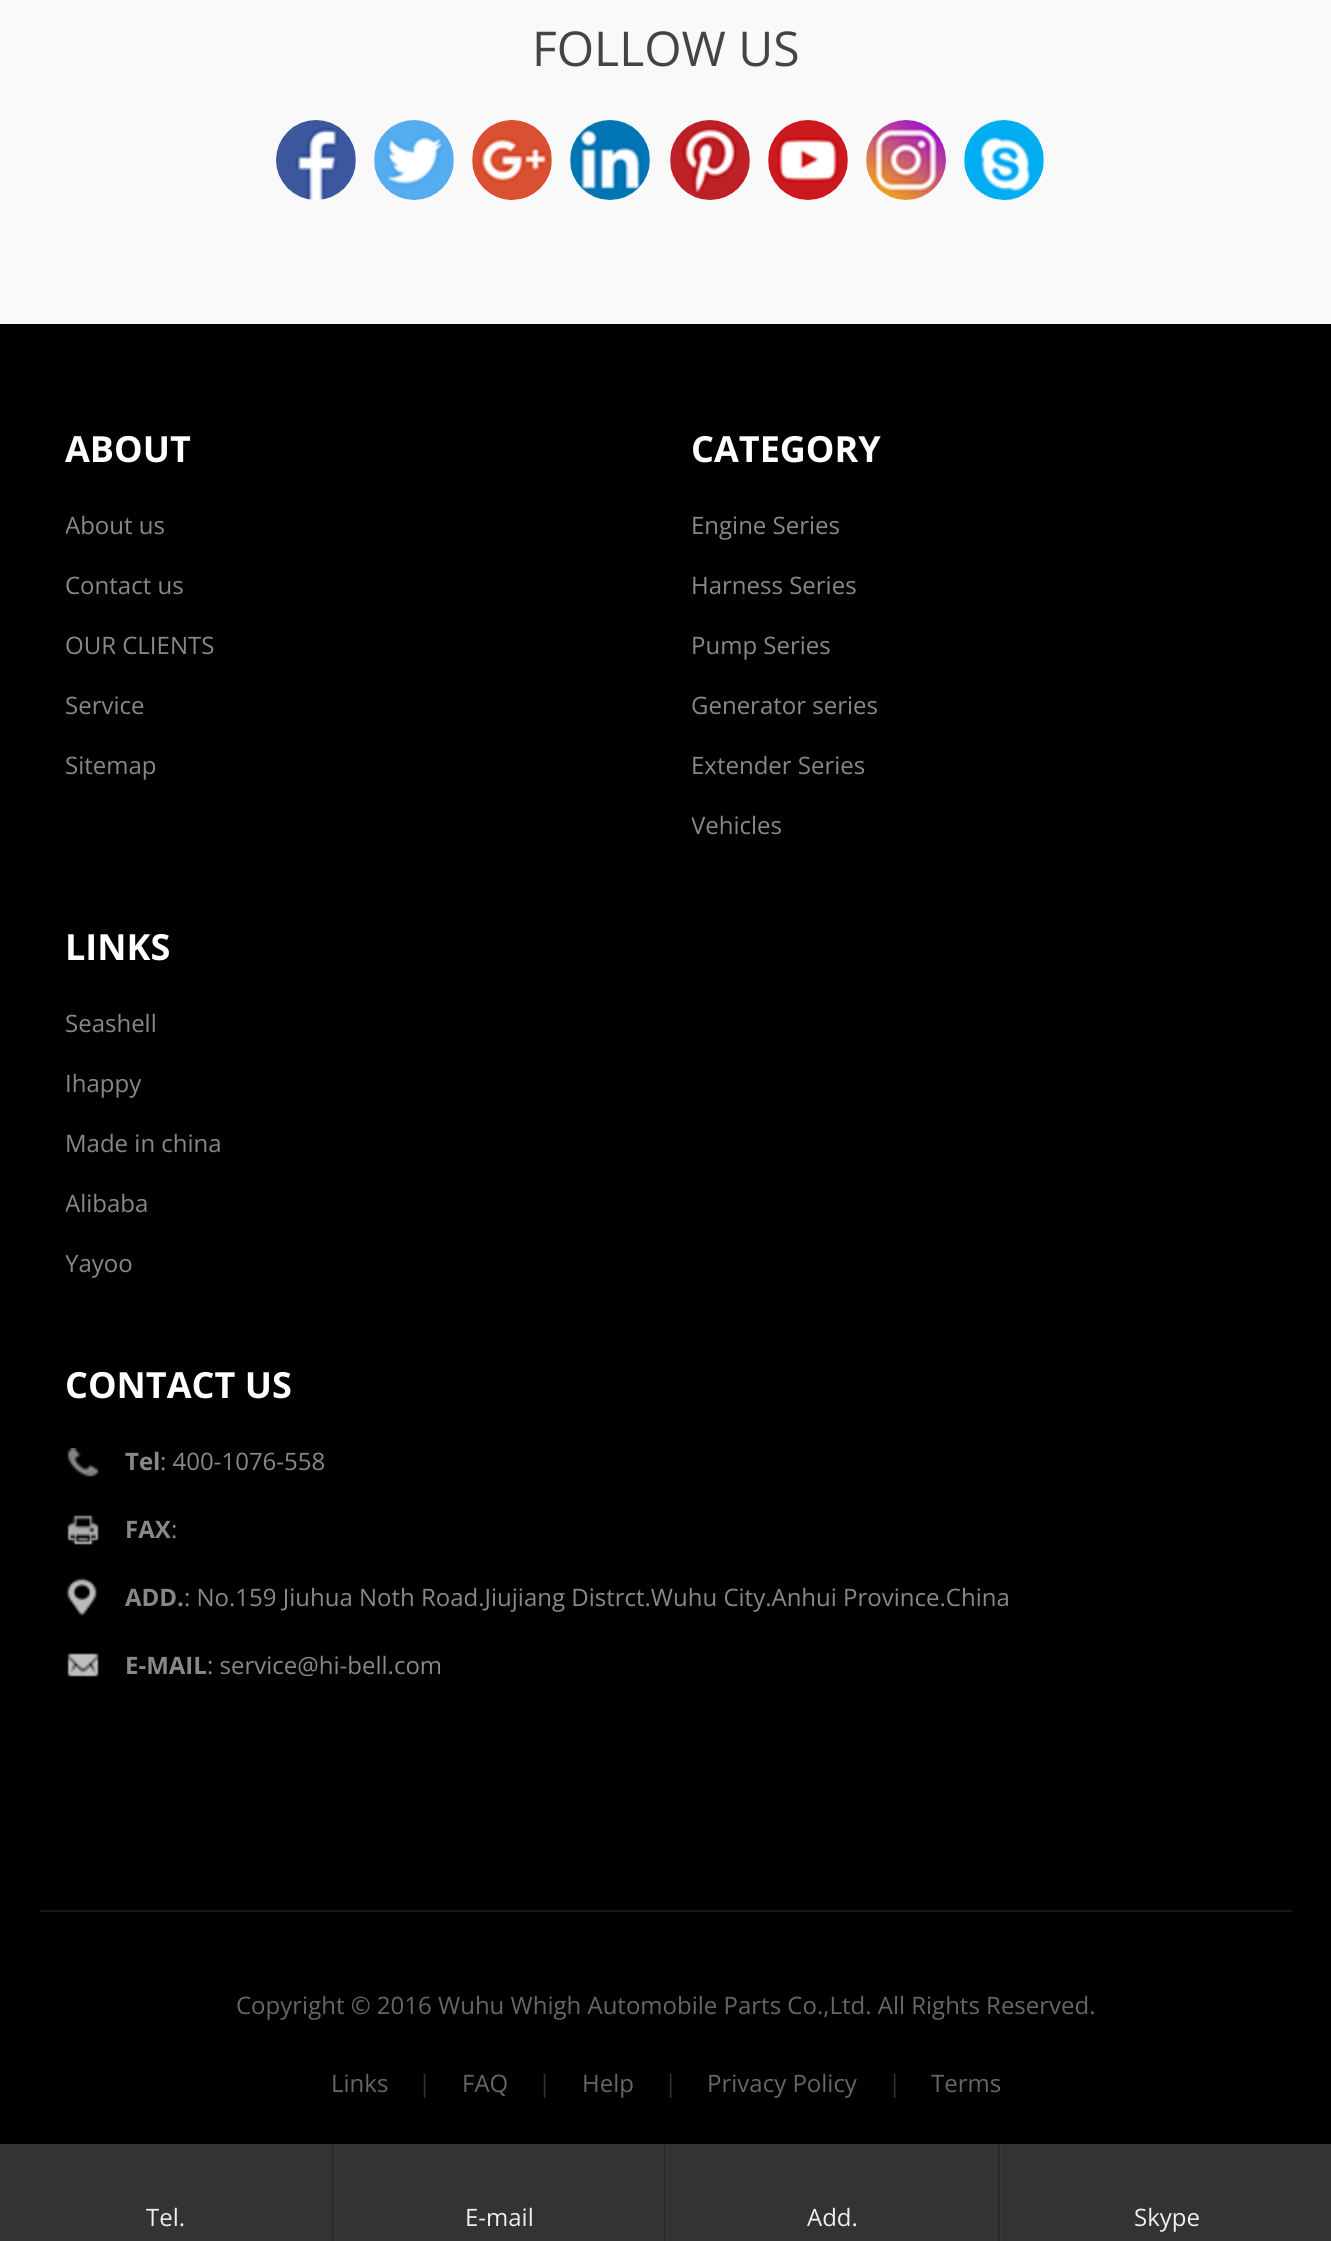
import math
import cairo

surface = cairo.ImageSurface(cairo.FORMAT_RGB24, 1331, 2241)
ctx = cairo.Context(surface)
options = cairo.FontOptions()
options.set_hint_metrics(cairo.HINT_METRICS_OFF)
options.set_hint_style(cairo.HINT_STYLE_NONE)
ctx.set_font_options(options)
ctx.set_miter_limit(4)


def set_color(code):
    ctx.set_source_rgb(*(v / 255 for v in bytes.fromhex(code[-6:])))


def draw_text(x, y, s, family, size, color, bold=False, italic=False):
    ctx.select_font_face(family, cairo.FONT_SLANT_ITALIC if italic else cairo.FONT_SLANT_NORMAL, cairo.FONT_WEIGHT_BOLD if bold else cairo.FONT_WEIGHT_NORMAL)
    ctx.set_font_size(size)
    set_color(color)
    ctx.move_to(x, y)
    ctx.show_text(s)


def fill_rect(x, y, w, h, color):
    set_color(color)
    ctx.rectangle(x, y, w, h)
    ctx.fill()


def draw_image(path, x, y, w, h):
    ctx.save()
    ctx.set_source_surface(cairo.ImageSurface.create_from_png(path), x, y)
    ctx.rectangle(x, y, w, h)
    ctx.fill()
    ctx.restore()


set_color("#000000")
ctx.paint()
fill_rect(0, 0, 1331, 324, "#f9f9f9")
draw_text(532, 66, "FOLLOW US", "Open Sans", 48, "#444444")
draw_image("assets/img1.png", 276, 120, 80, 80)
draw_image("assets/img2.png", 374, 120, 80, 80)
draw_image("assets/img3.png", 472, 120, 80, 80)
draw_image("assets/img4.png", 570, 120, 80, 80)
draw_image("assets/img5.png", 670, 120, 80, 80)
draw_image("assets/img6.png", 768, 120, 80, 80)
draw_image("assets/img7.png", 866, 120, 80, 80)
draw_image("assets/img8.png", 964, 120, 80, 80)
draw_text(65, 462, "ABOUT", "Open Sans", 36, "#ffffff", bold=True)
ctx.save()
ctx.rectangle(66, 502, 574, 48)
ctx.clip()
draw_text(65, 534, "About us", "Open Sans", 24, "#888888")
ctx.restore()
draw_text(65, 594, "Contact us", "Open Sans", 24, "#888888")
draw_text(65, 654, "OUR CLIENTS", "Open Sans", 24, "#888888")
draw_text(65, 714, "Service", "Open Sans", 24, "#888888")
draw_text(65, 774, "Sitemap", "Open Sans", 24, "#888888")
draw_text(691, 462, "CATEGORY", "Open Sans", 36, "#ffffff", bold=True)
draw_text(691, 534, "Engine Series", "Open Sans", 24, "#888888")
draw_text(691, 594, "Harness Series", "Open Sans", 24, "#888888")
draw_text(691, 654, "Pump Series", "Open Sans", 24, "#888888")
draw_text(691, 714, "Generator series", "Open Sans", 24, "#888888")
draw_text(691, 774, "Extender Series", "Open Sans", 24, "#888888")
ctx.save()
ctx.rectangle(692, 802, 574, 48)
ctx.clip()
draw_text(691, 834, "Vehicles", "Open Sans", 24, "#888888")
ctx.restore()
draw_text(65, 960, "LINKS", "Open Sans", 36, "#ffffff", bold=True)
draw_text(65, 1032, "Seashell", "Open Sans", 24, "#888888")
draw_text(65, 1092, "Ihappy", "Open Sans", 24, "#888888")
draw_text(65, 1152, "Made in china", "Open Sans", 24, "#888888")
ctx.save()
ctx.rectangle(66, 1180, 574, 48)
ctx.clip()
draw_text(65, 1212, "Alibaba", "Open Sans", 24, "#888888")
ctx.restore()
ctx.save()
ctx.rectangle(66, 1240, 574, 48)
ctx.clip()
draw_text(65, 1272, "Yayoo", "Open Sans", 24, "#888888")
ctx.restore()
draw_text(65, 1398, "CONTACT US", "Open Sans", 36, "#ffffff", bold=True)
draw_image("assets/img9.png", 67, 1448, 32, 29)
draw_text(125, 1470, "Tel", "Open Sans", 24, "#888888", bold=True)
draw_text(160, 1470, ": 400-1076-558", "Open Sans", 24, "#888888")
draw_image("assets/img10.png", 67, 1515, 32, 30)
draw_text(125, 1538, "FAX", "Open Sans", 24, "#888888", bold=True)
draw_text(171, 1538, ":", "Open Sans", 24, "#888888")
draw_image("assets/img11.png", 66, 1577, 32, 40)
draw_text(125, 1606, "ADD.", "Open Sans", 24, "#888888", bold=True)
draw_text(184, 1606, ": No.159 Jiuhua Noth Road.Jiujiang Distrct.Wuhu City.Anhui Province.China", "Open Sans", 24, "#888888")
draw_image("assets/img12.png", 67, 1653, 32, 24)
draw_text(125, 1674, "E-MAIL", "Open Sans", 24, "#888888", bold=True)
draw_text(207, 1674, ": service@hi-bell.com", "Open Sans", 24, "#888888")
fill_rect(40, 1910, 1252, 2, "#181818")
draw_text(236, 2014, "Copyright © 2016 Wuhu Whigh Automobile Parts Co.,Ltd. All Rights Reserved.", "Open Sans", 24, "#666666")
draw_text(331, 2092, "Links", "Open Sans", 24, "#666666")
draw_text(418, 2092, "|", "Open Sans", 24, "#333333")
draw_text(462, 2092, "FAQ", "Open Sans", 24, "#666666")
draw_text(538, 2092, "|", "Open Sans", 24, "#333333")
draw_text(582, 2092, "Help", "Open Sans", 24, "#666666")
draw_text(664, 2092, "|", "Open Sans", 24, "#333333")
draw_text(707, 2092, "Privacy Policy", "Open Sans", 24, "#666666")
draw_text(888, 2092, "|", "Open Sans", 24, "#333333")
draw_text(931, 2092, "Terms", "Open Sans", 24, "#666666")
fill_rect(0, 2144, 1331, 97, "#333333")
fill_rect(332, 2144, 2, 97, "#2b2b2b")
draw_text(146, 2226, "Tel.", "Open Sans", 24, "#eeeeee")
fill_rect(664, 2144, 2, 97, "#2b2b2b")
fill_rect(334, 2144, 2, 97, "#383838")
draw_text(465, 2226, "E-mail", "Open Sans", 24, "#eeeeee")
fill_rect(998, 2144, 2, 97, "#2b2b2b")
fill_rect(666, 2144, 2, 97, "#383838")
draw_text(807, 2226, "Add.", "Open Sans", 24, "#eeeeee")
fill_rect(1000, 2144, 2, 97, "#383838")
draw_text(1134, 2226, "Skype", "Open Sans", 24, "#eeeeee")
surface.write_to_png("output.png")
